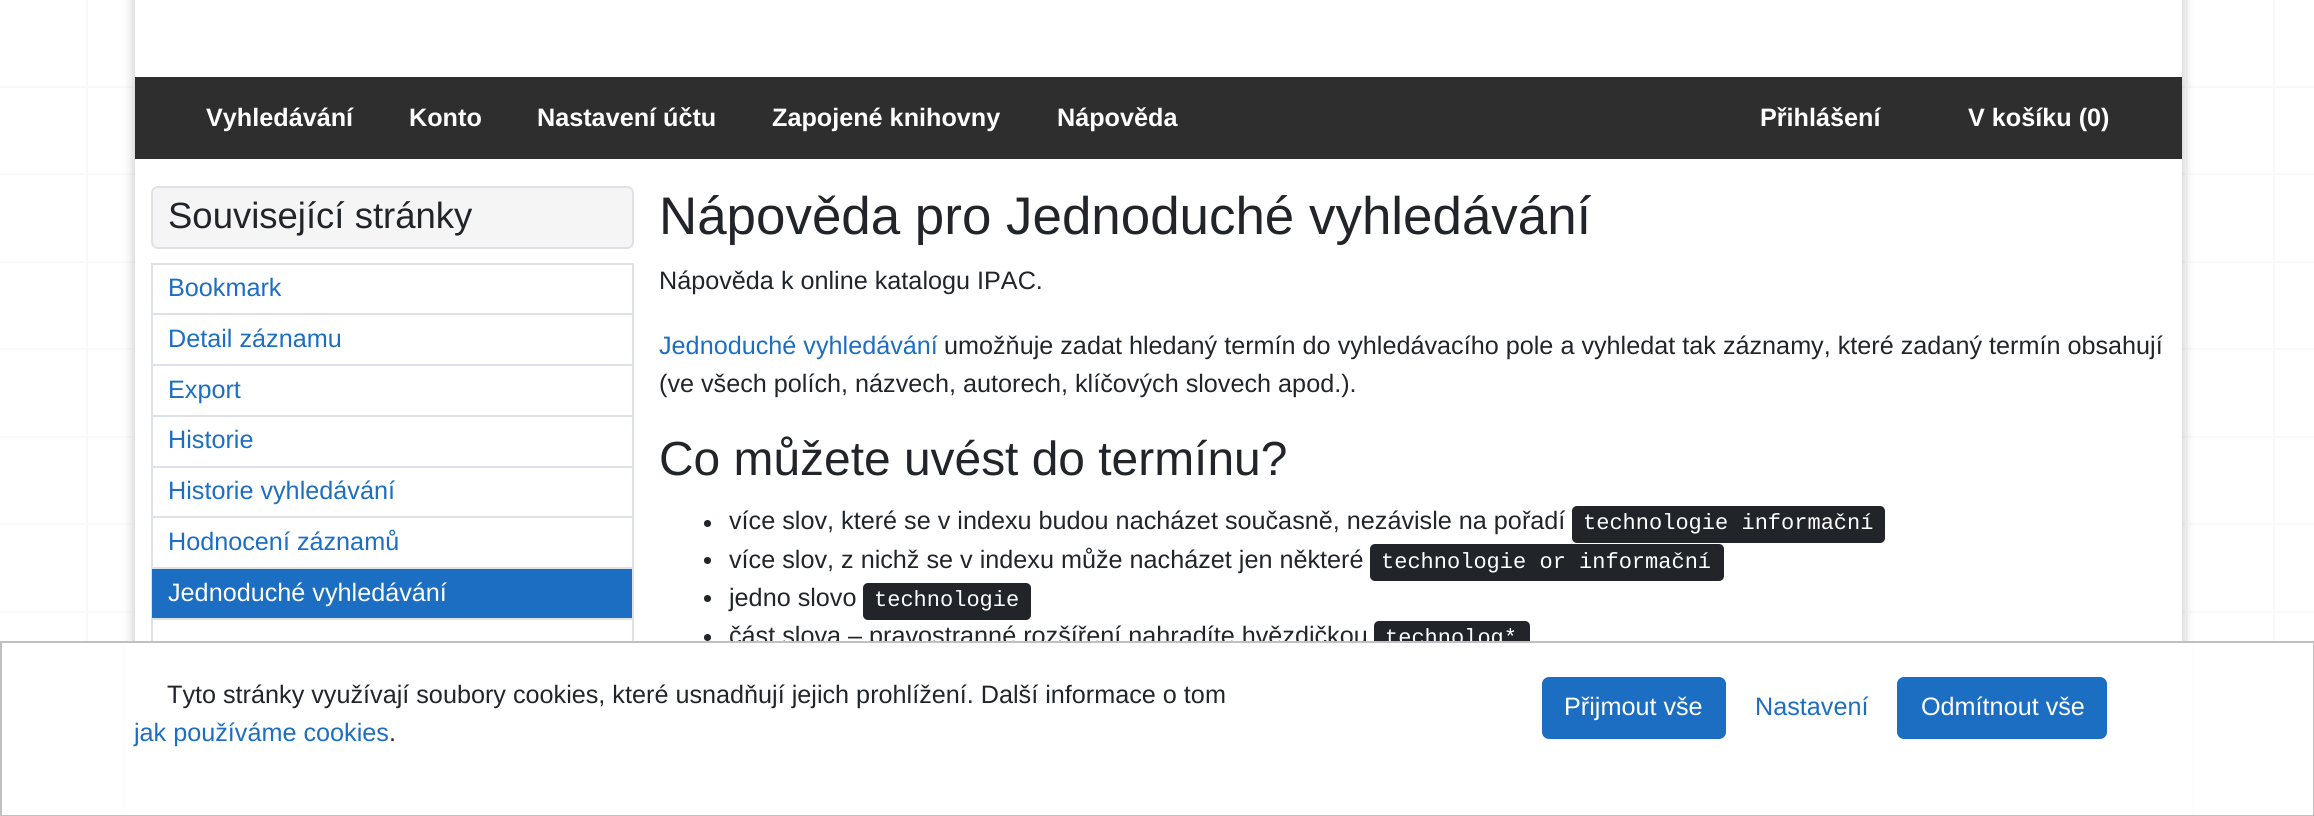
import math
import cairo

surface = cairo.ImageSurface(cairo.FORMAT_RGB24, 2314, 816)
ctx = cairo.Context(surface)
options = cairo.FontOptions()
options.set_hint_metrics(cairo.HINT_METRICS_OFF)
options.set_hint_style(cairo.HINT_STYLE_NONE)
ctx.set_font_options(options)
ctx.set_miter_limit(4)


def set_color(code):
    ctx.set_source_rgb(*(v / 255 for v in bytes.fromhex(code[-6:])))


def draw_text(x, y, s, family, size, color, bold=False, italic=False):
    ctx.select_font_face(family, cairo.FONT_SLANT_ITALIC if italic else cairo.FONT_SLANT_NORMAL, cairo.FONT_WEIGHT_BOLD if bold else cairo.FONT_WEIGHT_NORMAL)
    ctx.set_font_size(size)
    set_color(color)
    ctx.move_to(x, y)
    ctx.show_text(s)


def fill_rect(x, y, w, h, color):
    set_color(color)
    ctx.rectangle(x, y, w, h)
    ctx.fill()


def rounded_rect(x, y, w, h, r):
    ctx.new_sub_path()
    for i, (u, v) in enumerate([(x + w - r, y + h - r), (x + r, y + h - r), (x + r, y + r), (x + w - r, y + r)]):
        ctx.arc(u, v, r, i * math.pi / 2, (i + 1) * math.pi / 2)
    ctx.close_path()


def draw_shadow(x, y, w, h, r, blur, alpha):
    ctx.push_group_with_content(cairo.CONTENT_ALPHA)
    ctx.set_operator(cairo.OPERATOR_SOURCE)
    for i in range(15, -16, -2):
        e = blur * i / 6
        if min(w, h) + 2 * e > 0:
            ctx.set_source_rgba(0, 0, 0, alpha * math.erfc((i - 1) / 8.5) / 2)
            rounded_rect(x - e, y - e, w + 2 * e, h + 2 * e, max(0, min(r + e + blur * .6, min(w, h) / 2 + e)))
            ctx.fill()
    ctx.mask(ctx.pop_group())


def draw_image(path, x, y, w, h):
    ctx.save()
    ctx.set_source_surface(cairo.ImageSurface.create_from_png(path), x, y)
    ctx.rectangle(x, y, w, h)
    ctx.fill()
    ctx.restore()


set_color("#ffffff")
ctx.paint()
draw_image("assets/img1.png", 86, 0, 2189, 641)
fill_rect(0, 86, 2314, 2, "#f8f9fa")
fill_rect(0, 173, 2314, 2, "#f8f9fa")
fill_rect(0, 261, 2314, 2, "#f8f9fa")
fill_rect(0, 348, 2314, 2, "#f8f9fa")
fill_rect(0, 436, 2314, 2, "#f8f9fa")
fill_rect(0, 523, 2314, 2, "#f8f9fa")
fill_rect(0, 611, 2314, 2, "#f8f9fa")
set_color("#000000")
draw_shadow(133, -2, 2051, 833, 0, 5, 0.2)
fill_rect(135, 0, 2047, 641, "#ffffff")
fill_rect(135, 77, 2047, 82, "#2e2e2e")
draw_text(206, 126, "Vyhledávání", "Liberation Sans", 25.2, "#ffffff", bold=True)
draw_text(409, 126, "Konto", "Liberation Sans", 25.2, "#ffffff", bold=True)
draw_text(537, 126, "Nastavení účtu", "Liberation Sans", 25.2, "#ffffff", bold=True)
draw_text(772, 126, "Zapojené knihovny", "Liberation Sans", 25.2, "#ffffff", bold=True)
draw_text(1057, 126, "Nápověda", "Liberation Sans", 25.2, "#ffffff", bold=True)
draw_text(1760, 126, "Přihlášení", "Liberation Sans", 25.2, "#ffffff", bold=True)
draw_text(1968, 126, "V košíku (0)", "Liberation Sans", 25.2, "#ffffff", bold=True)
set_color("#f5f5f5")
rounded_rect(152, 187, 481, 61, 6)
ctx.fill_preserve()
set_color("#dee2e6")
ctx.stroke()
draw_text(168, 228, "Související stránky", "Liberation Sans", 36.5, "#212529")
fill_rect(151, 263, 483, 2, "#dee2e6")
fill_rect(632, 263, 2, 50, "#dee2e6")
fill_rect(151, 263, 2, 50, "#dee2e6")
draw_text(168, 296, "Bookmark", "Liberation Sans", 25.2, "#1b6ec2")
fill_rect(151, 313, 483, 2, "#dee2e6")
fill_rect(632, 313, 2, 51, "#dee2e6")
fill_rect(151, 313, 2, 51, "#dee2e6")
draw_text(168, 347, "Detail záznamu", "Liberation Sans", 25.2, "#1b6ec2")
fill_rect(151, 364, 483, 2, "#dee2e6")
fill_rect(632, 364, 2, 51, "#dee2e6")
fill_rect(151, 364, 2, 51, "#dee2e6")
draw_text(168, 398, "Export", "Liberation Sans", 25.2, "#1b6ec2")
fill_rect(151, 415, 483, 2, "#dee2e6")
fill_rect(632, 415, 2, 51, "#dee2e6")
fill_rect(151, 415, 2, 51, "#dee2e6")
draw_text(168, 448, "Historie", "Liberation Sans", 25.2, "#1b6ec2")
fill_rect(151, 466, 483, 2, "#dee2e6")
fill_rect(632, 466, 2, 50, "#dee2e6")
fill_rect(151, 466, 2, 50, "#dee2e6")
draw_text(168, 499, "Historie vyhledávání", "Liberation Sans", 25.2, "#1b6ec2")
fill_rect(151, 516, 483, 2, "#dee2e6")
fill_rect(632, 516, 2, 51, "#dee2e6")
fill_rect(151, 516, 2, 51, "#dee2e6")
draw_text(168, 550, "Hodnocení záznamů", "Liberation Sans", 25.2, "#1b6ec2")
fill_rect(151, 567, 483, 2, "#dee2e6")
fill_rect(632, 567, 2, 51, "#dee2e6")
fill_rect(151, 567, 2, 51, "#dee2e6")
fill_rect(152, 569, 480, 49, "#1b6ec2")
draw_text(168, 601, "Jednoduché vyhledávání", "Liberation Sans", 25.2, "#ffffff")
fill_rect(151, 618, 483, 2, "#dee2e6")
fill_rect(632, 618, 2, 23, "#dee2e6")
fill_rect(151, 618, 2, 23, "#dee2e6")
draw_text(659, 234, "Nápověda pro Jednoduché vyhledávání", "Liberation Sans", 52.9, "#212529")
draw_text(659, 289, "Nápověda k online katalogu IPAC.", "Liberation Sans", 25.2, "#212529")
draw_text(659, 354, "Jednoduché vyhledávání", "Liberation Sans", 25.2, "#1b6ec2")
draw_text(944, 354, "umožňuje zadat hledaný termín do vyhledávacího pole a vyhledat tak záznamy, které zadaný termín obsahují", "Liberation Sans", 25.2, "#212529")
draw_text(659, 392, "(ve všech polích, názvech, autorech, klíčových slovech apod.).", "Liberation Sans", 25.2, "#212529")
draw_text(659, 475, "Co můžete uvést do termínu?", "Liberation Sans", 47.9, "#212529")
ctx.new_path()
ctx.arc(707.5, 523.5, 3.5, 0, 2 * math.pi)
ctx.fill()
draw_text(729, 529, "více slov, které se v indexu budou nacházet současně, nezávisle na pořadí", "Liberation Sans", 25.2, "#212529")
rounded_rect(1572, 506, 313, 37, 5)
ctx.fill()
draw_text(1583, 529, "technologie informační", "Liberation Mono", 22, "#ffffff")
set_color("#212529")
ctx.new_path()
ctx.arc(707.5, 560.5, 3.5, 0, 2 * math.pi)
ctx.fill()
draw_text(729, 568, "více slov, z nichž se v indexu může nacházet jen některé", "Liberation Sans", 25.2, "#212529")
rounded_rect(1370, 544, 354, 37, 5)
ctx.fill()
draw_text(1381, 568, "technologie or informační", "Liberation Mono", 22, "#ffffff")
set_color("#212529")
ctx.new_path()
ctx.arc(707.5, 598.5, 3.5, 0, 2 * math.pi)
ctx.fill()
draw_text(729, 606, "jedno slovo", "Liberation Sans", 25.2, "#212529")
rounded_rect(863, 583, 168, 37, 5)
ctx.fill()
draw_text(874, 606, "technologie", "Liberation Mono", 22, "#ffffff")
set_color("#212529")
ctx.new_path()
ctx.arc(707.5, 637.5, 3.5, 0, 2 * math.pi)
ctx.fill()
draw_text(729, 644, "část slova – pravostranné rozšíření nahradíte hvězdičkou", "Liberation Sans", 25.2, "#212529")
rounded_rect(1374, 621, 156, 35, 5)
ctx.fill()
draw_text(1385, 644, "technolog*", "Liberation Mono", 22, "#ffffff")
fill_rect(125, 643, 2067, 172, "#ffffff")
ctx.rectangle(1, 642, 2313, 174)
set_color("#c0c0c0")
ctx.stroke()
draw_text(167, 703, "Tyto stránky využívají soubory cookies, které usnadňují jejich prohlížení. Další informace o tom", "Liberation Sans", 25.2, "#212529")
draw_text(134, 741, "jak používáme cookies", "Liberation Sans", 25.2, "#1b6ec2")
draw_text(389, 741, ".", "Liberation Sans", 25.2, "#212529")
set_color("#1b6ec2")
rounded_rect(1543, 678, 182, 60, 6)
ctx.fill_preserve()
ctx.stroke()
draw_text(1564, 715, "Přijmout vše", "Liberation Sans", 25.2, "#ffffff")
draw_text(1755, 715, "Nastavení", "Liberation Sans", 25.2, "#1b6ec2")
rounded_rect(1898, 678, 208, 60, 6)
ctx.fill_preserve()
ctx.stroke()
draw_text(1921, 715, "Odmítnout vše", "Liberation Sans", 25.2, "#ffffff")
surface.write_to_png("output.png")
